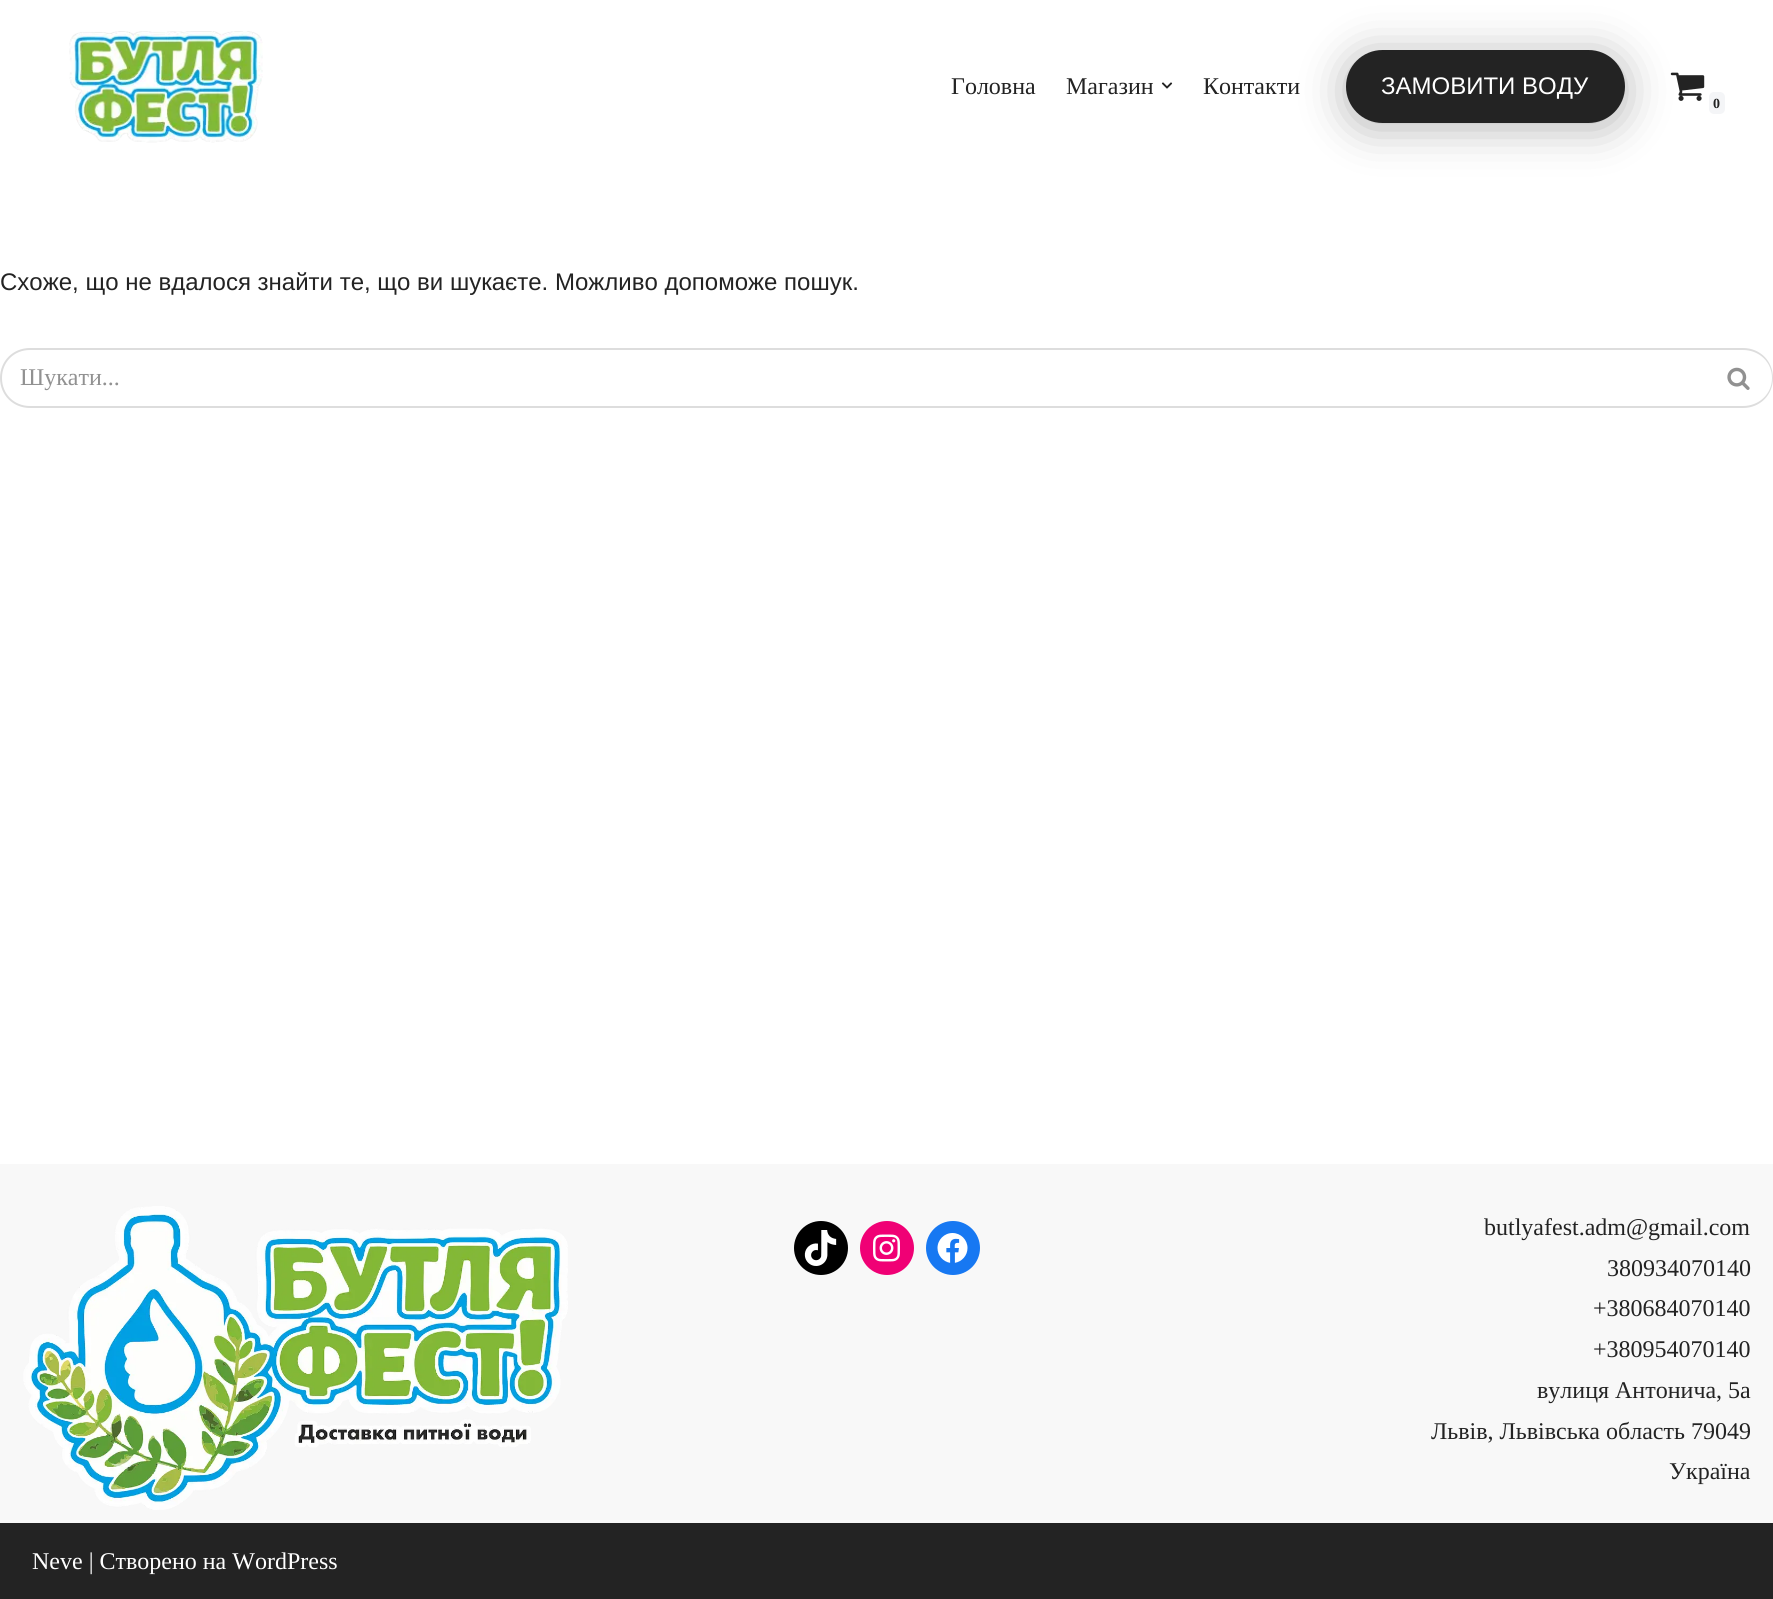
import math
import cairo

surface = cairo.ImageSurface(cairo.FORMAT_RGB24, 1773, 1599)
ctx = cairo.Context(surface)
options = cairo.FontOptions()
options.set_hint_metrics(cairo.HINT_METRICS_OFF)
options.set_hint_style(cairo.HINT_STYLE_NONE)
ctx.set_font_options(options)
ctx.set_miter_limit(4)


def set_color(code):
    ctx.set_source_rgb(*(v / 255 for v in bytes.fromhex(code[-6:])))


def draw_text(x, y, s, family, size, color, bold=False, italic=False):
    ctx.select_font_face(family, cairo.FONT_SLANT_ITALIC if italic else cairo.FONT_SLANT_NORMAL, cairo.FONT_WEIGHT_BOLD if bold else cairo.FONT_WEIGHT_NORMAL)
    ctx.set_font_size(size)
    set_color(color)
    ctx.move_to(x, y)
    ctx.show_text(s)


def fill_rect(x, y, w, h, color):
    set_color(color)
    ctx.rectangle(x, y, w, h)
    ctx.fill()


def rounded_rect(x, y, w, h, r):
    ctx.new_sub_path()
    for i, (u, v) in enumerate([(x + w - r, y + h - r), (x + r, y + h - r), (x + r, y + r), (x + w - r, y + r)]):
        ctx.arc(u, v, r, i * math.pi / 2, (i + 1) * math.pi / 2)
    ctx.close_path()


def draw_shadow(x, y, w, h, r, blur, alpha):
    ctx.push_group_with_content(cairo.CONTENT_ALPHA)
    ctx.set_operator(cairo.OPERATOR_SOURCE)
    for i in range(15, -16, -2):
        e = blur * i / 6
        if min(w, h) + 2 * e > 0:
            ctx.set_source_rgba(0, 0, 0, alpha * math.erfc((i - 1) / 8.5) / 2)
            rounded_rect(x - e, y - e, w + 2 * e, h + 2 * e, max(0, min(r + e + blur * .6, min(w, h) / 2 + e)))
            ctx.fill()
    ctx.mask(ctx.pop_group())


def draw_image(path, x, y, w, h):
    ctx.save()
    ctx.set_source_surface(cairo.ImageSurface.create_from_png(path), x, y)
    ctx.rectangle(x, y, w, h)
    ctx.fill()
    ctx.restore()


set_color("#ffffff")
ctx.paint()
draw_image("assets/img1.png", 69, 31, 194, 112)
draw_text(951, 94, "Головна", "Liberation Serif", 24, "#232323")
draw_text(1066, 94, "Магазин", "Liberation Serif", 24, "#232323")
draw_image("assets/img2.png", 1161, 82, 12, 7)
draw_text(1203, 94, "Контакти", "Liberation Serif", 24, "#232323")
set_color("#000000")
draw_shadow(1346, 54, 279, 74, 37, 22.5, 0.29)
set_color("#232323")
rounded_rect(1346, 50, 279, 73, 36.5)
ctx.fill()
draw_text(1381, 94, "ЗАМОВИТИ ВОДУ", "Liberation Sans", 24, "#ffffff")
draw_image("assets/img3.png", 1670, 72, 35, 29)
set_color("#f4f5f7")
rounded_rect(1709, 92, 16, 22, 5)
ctx.fill()
draw_text(1713, 108, "0", "Liberation Serif", 14, "#232323", bold=True)
draw_text(0, 290, "Схоже, що не вдалося знайти те, що ви шукаєте. Можливо допоможе пошук.", "Liberation Sans", 24, "#232323")
set_color("#dddddd")
ctx.set_fill_rule(cairo.FILL_RULE_EVEN_ODD)
ctx.new_path()
ctx.move_to(30, 348)
ctx.line_to(1706, 348)
ctx.line_to(1706, 408)
ctx.line_to(30, 408)
ctx.curve_to(13, 408, 0, 395, 0, 378)
ctx.curve_to(0, 361, 13, 348, 30, 348)
ctx.close_path()
ctx.move_to(30, 350)
ctx.line_to(1706, 350)
ctx.line_to(1706, 406)
ctx.line_to(30, 406)
ctx.curve_to(14, 406, 2, 394, 2, 378)
ctx.curve_to(2, 362, 14, 350, 30, 350)
ctx.close_path()
ctx.fill()
draw_text(20, 385, "Шукати...", "Liberation Serif", 24, "#919191")
set_color("#dddddd")
ctx.new_path()
ctx.move_to(1706, 348)
ctx.line_to(1743, 348)
ctx.curve_to(1760, 348, 1773, 361, 1773, 378)
ctx.curve_to(1773, 395, 1760, 408, 1743, 408)
ctx.line_to(1706, 408)
ctx.close_path()
ctx.move_to(1706, 350)
ctx.line_to(1743, 350)
ctx.curve_to(1759, 350, 1772, 362, 1772, 378)
ctx.curve_to(1772, 394, 1759, 406, 1743, 406)
ctx.line_to(1706, 406)
ctx.close_path()
ctx.fill()
draw_image("assets/img4.png", 1727, 367, 23, 23)
fill_rect(0, 1164, 1773, 359, "#f8f8f8")
draw_image("assets/img5.png", 23, 1206, 545, 304)
set_color("#000000")
ctx.arc(821, 1248, 27, 0, 2 * math.pi)
ctx.fill()
draw_image("assets/img6.png", 804, 1230, 33, 36)
set_color("#f00075")
ctx.arc(887, 1248, 27, 0, 2 * math.pi)
ctx.fill()
draw_image("assets/img7.png", 873, 1234, 27, 28)
set_color("#1778f2")
ctx.arc(953, 1248, 27, 0, 2 * math.pi)
ctx.fill()
draw_image("assets/img8.png", 937, 1233, 31, 30)
draw_text(1484, 1235, "butlyafest.adm@gmail.com", "Liberation Serif", 24, "#232323")
draw_text(1607, 1276, "380934070140", "Liberation Serif", 24, "#232323")
draw_text(1593, 1316, "+380684070140", "Liberation Serif", 24, "#232323")
draw_text(1593, 1357, "+380954070140", "Liberation Serif", 24, "#232323")
draw_text(1537, 1398, "вулиця Антонича, 5а", "Liberation Serif", 24, "#232323")
draw_text(1431, 1439, "Львів, Львівська область 79049", "Liberation Serif", 24, "#232323")
draw_text(1669, 1479, "Україна", "Liberation Serif", 24, "#232323")
fill_rect(0, 1523, 1773, 76, "#232323")
draw_text(32, 1569, "Neve | Створено на WordPress", "Liberation Serif", 24, "#ffffff")
surface.write_to_png("output.png")
